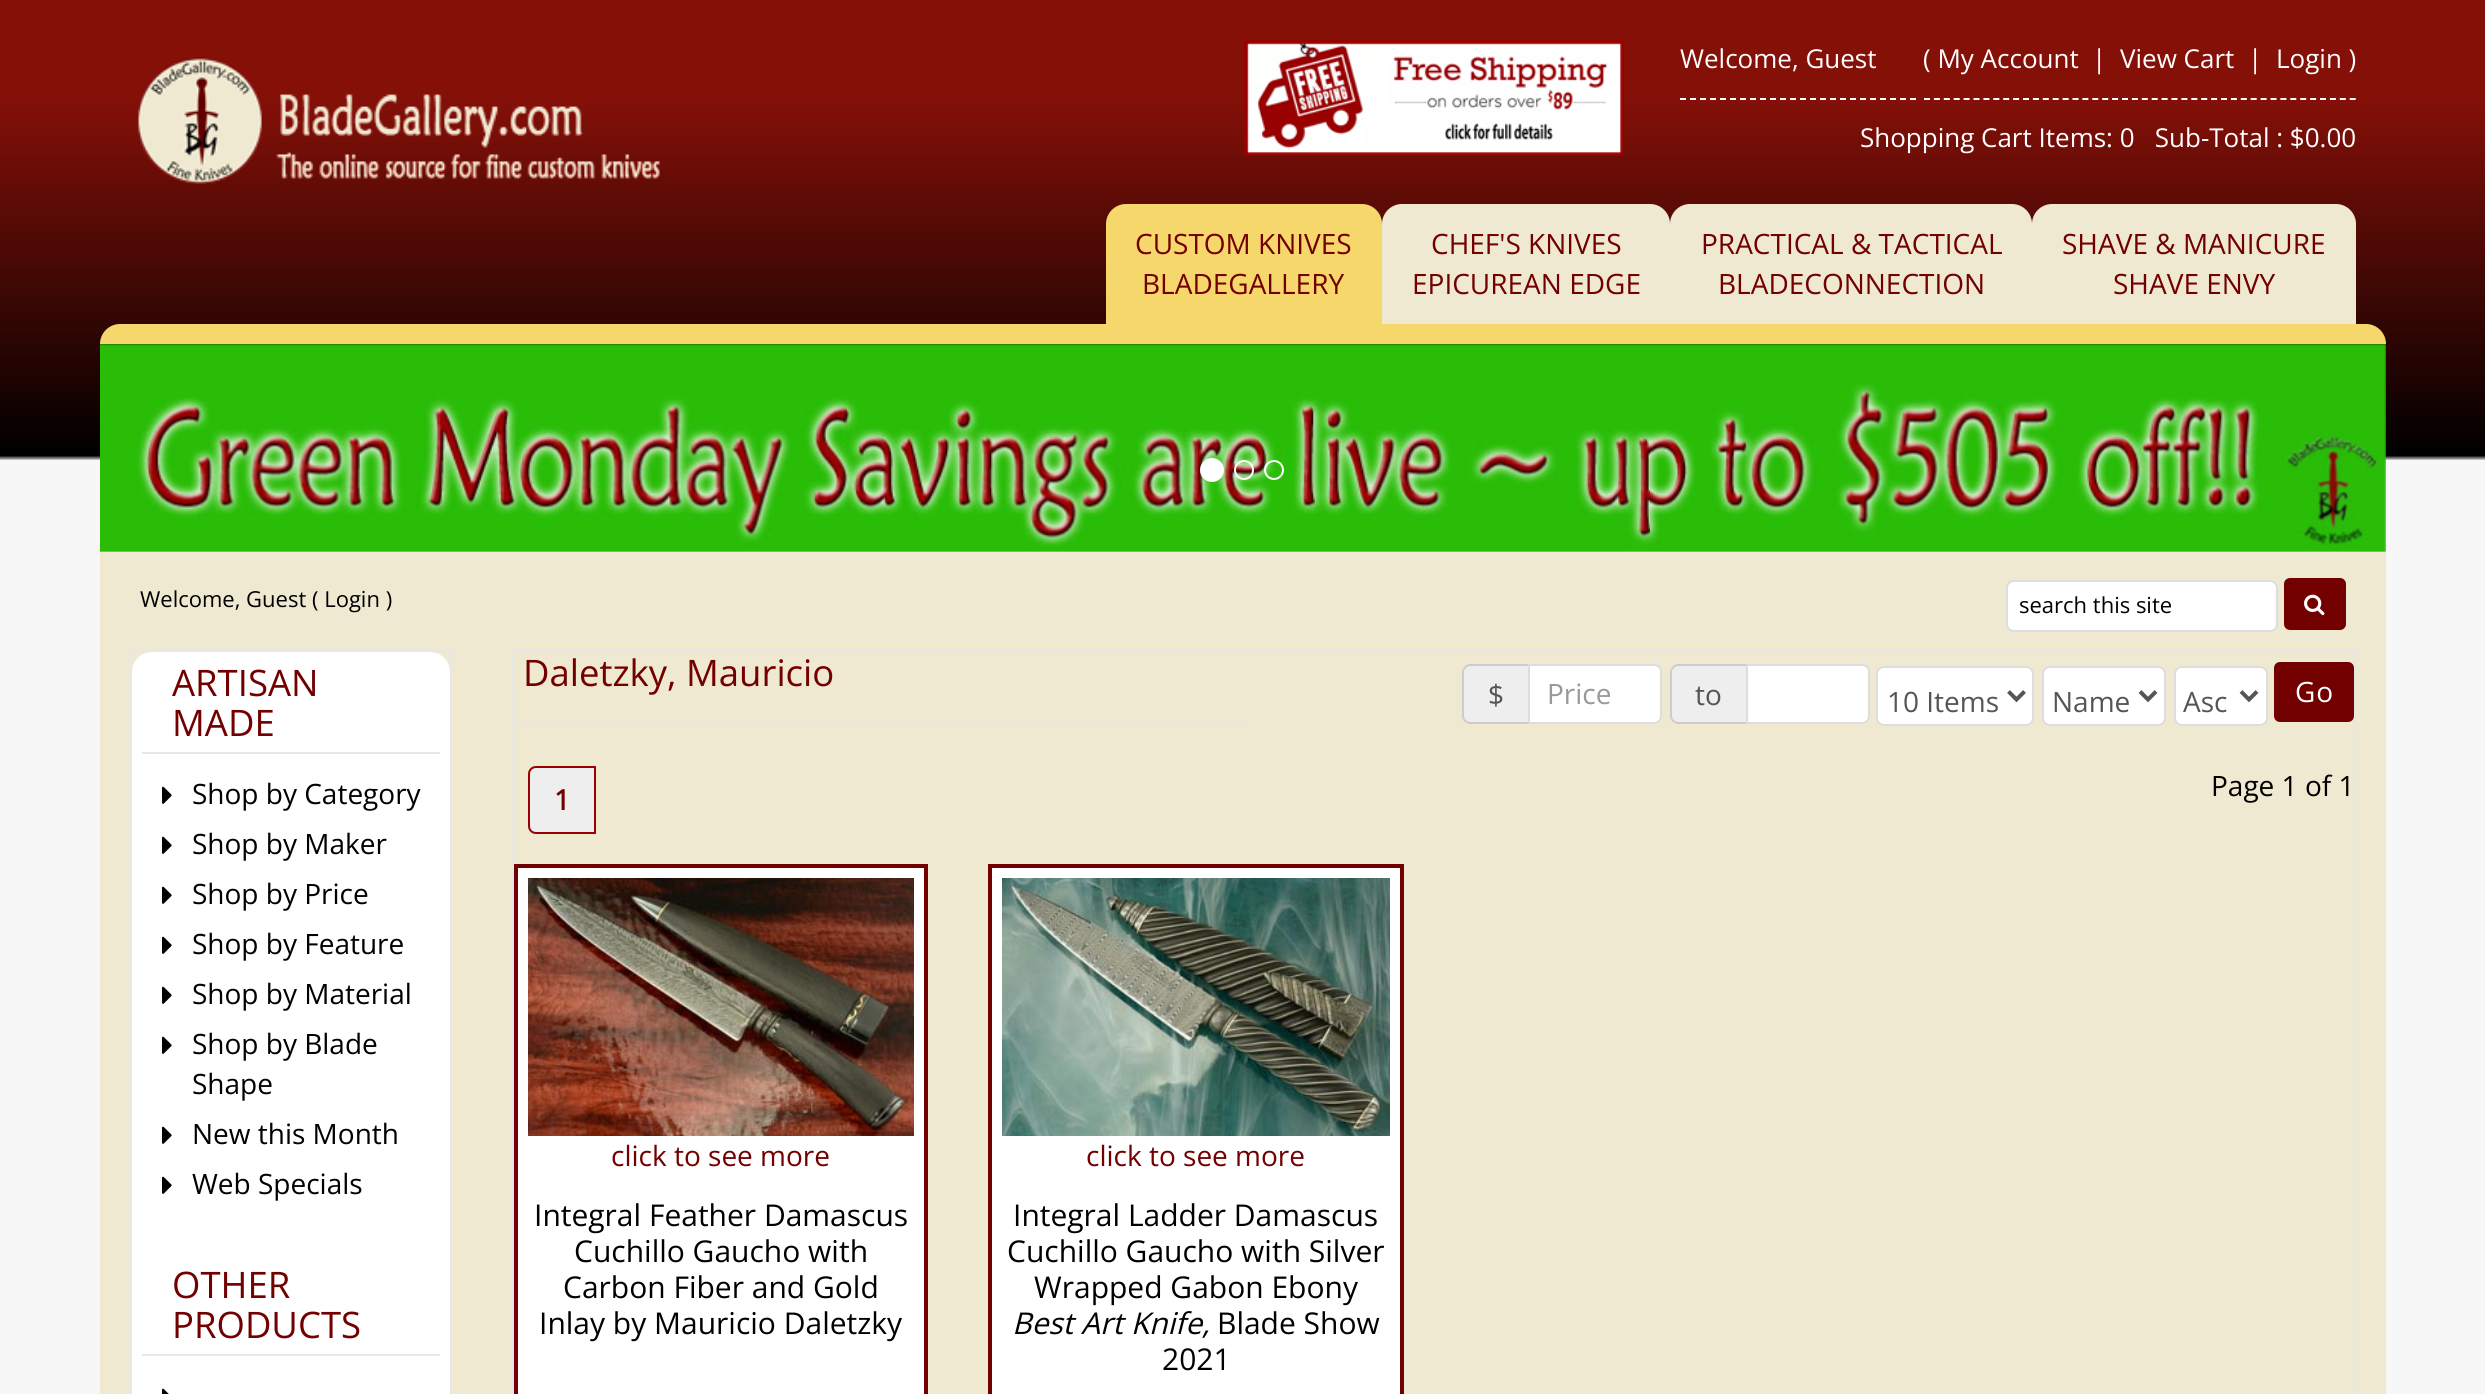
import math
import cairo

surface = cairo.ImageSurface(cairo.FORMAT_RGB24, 2485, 1394)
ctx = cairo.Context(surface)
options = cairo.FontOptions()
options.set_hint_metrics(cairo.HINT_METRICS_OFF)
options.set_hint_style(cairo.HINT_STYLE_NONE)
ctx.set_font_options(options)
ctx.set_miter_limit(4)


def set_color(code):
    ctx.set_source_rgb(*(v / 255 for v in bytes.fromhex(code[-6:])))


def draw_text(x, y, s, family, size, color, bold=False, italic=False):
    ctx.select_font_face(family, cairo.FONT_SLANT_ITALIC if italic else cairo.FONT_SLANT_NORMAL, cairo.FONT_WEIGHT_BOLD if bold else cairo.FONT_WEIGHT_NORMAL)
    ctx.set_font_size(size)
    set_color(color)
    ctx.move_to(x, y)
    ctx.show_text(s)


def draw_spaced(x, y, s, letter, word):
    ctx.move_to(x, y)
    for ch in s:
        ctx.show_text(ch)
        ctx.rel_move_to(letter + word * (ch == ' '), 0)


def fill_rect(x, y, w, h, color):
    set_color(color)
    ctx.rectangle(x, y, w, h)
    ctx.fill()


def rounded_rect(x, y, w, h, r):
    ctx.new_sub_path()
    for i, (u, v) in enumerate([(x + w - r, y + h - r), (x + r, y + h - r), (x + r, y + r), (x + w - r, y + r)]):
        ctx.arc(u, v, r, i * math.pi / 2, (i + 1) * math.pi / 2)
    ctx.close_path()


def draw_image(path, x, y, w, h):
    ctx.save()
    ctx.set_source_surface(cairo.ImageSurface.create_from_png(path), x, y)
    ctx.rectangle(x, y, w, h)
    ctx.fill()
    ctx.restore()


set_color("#f7f7f7")
ctx.paint()
gradient = cairo.LinearGradient(1243, 0, 1243, 490)
gradient.add_color_stop_rgba(0, 0.518, 0.063, 0.031, 1)
gradient.add_color_stop_rgba(0.2, 0.518, 0.063, 0.031, 1)
gradient.add_color_stop_rgba(0.93, 0, 0, 0, 1)
gradient.add_color_stop_rgba(0.94, 0, 0, 0, 0)
ctx.set_source(gradient)
ctx.rectangle(0, 0, 2485, 460)
ctx.fill()
draw_image("assets/img1.png", 137, 57, 523, 127)
draw_image("assets/img2.png", 1244, 40, 380, 116)
ctx.new_path()
ctx.move_to(1680, 99)
ctx.line_to(1916, 99)
set_color("#ffffff")
ctx.set_dash([6, 4])
ctx.stroke()
draw_text(1680, 68, "Welcome, Guest", "Open Sans", 26, "#ffffff")
ctx.new_path()
ctx.move_to(1924, 99)
ctx.line_to(2356, 99)
ctx.set_dash([6, 3.9])
ctx.stroke()
draw_text(1923, 68, "( My Account", "Open Sans", 26, "#ffffff")
draw_text(2092, 68, "|", "Open Sans", 26, "#ffffff")
draw_text(2120, 68, "View Cart", "Open Sans", 26, "#ffffff")
draw_text(2248, 68, "|", "Open Sans", 26, "#ffffff")
draw_text(2276, 68, "Login )", "Open Sans", 26, "#ffffff")
draw_text(1860, 147, "Shopping Cart Items: 0   Sub-Total : $0.00", "Open Sans", 26, "#ffffff")
set_color("#f6d76b")
ctx.new_path()
ctx.move_to(1126, 204)
ctx.line_to(1362, 204)
ctx.curve_to(1373, 204, 1382, 213, 1382, 224)
ctx.line_to(1382, 324)
ctx.line_to(1106, 324)
ctx.line_to(1106, 224)
ctx.curve_to(1106, 213, 1115, 204, 1126, 204)
ctx.close_path()
ctx.fill()
draw_text(1135, 254, "CUSTOM KNIVES", "Open Sans", 28, "#730000")
draw_text(1142, 294, "BLADEGALLERY", "Open Sans", 28, "#730000")
set_color("#efe9d1")
ctx.new_path()
ctx.move_to(1402, 204)
ctx.line_to(1650, 204)
ctx.curve_to(1661, 204, 1670, 213, 1670, 224)
ctx.line_to(1670, 324)
ctx.line_to(1382, 324)
ctx.line_to(1382, 224)
ctx.curve_to(1382, 213, 1391, 204, 1402, 204)
ctx.close_path()
ctx.fill()
draw_text(1431, 254, "CHEF'S KNIVES", "Open Sans", 28, "#730000")
draw_text(1412, 294, "EPICUREAN EDGE", "Open Sans", 28, "#730000")
set_color("#efe9d1")
ctx.new_path()
ctx.move_to(1690, 204)
ctx.line_to(2012, 204)
ctx.curve_to(2023, 204, 2032, 213, 2032, 224)
ctx.line_to(2032, 324)
ctx.line_to(1670, 324)
ctx.line_to(1670, 224)
ctx.curve_to(1670, 213, 1679, 204, 1690, 204)
ctx.close_path()
ctx.fill()
draw_text(1701, 254, "PRACTICAL & TACTICAL", "Open Sans", 28, "#730000")
draw_text(1718, 294, "BLADECONNECTION", "Open Sans", 28, "#730000")
set_color("#efe9d1")
ctx.new_path()
ctx.move_to(2052, 204)
ctx.line_to(2336, 204)
ctx.curve_to(2347, 204, 2356, 213, 2356, 224)
ctx.line_to(2356, 324)
ctx.line_to(2032, 324)
ctx.line_to(2032, 224)
ctx.curve_to(2032, 213, 2041, 204, 2052, 204)
ctx.close_path()
ctx.fill()
draw_text(2062, 254, "SHAVE & MANICURE", "Open Sans", 28, "#730000")
draw_text(2113, 294, "SHAVE ENVY", "Open Sans", 28, "#730000")
set_color("#f6d76b")
ctx.new_path()
ctx.move_to(120, 324)
ctx.line_to(2366, 324)
ctx.curve_to(2377, 324, 2386, 333, 2386, 344)
ctx.line_to(100, 344)
ctx.curve_to(100, 333, 109, 324, 120, 324)
ctx.close_path()
ctx.fill()
draw_image("assets/img3.png", 100, 344, 2286, 208)
set_color("#ffffff")
ctx.arc(1212, 470, 11, 0, 2 * math.pi)
ctx.fill_preserve()
ctx.set_dash([])
ctx.stroke()
ctx.arc(1244, 470, 9, 0, 2 * math.pi)
ctx.stroke()
ctx.arc(1274, 470, 9, 0, 2 * math.pi)
ctx.stroke()
fill_rect(100, 552, 2286, 842, "#f0e9d1")
draw_text(140, 607, "Welcome, Guest ( Login )", "Open Sans", 22, "#000000")
set_color("#ffffff")
rounded_rect(2007, 581, 270, 50, 7)
ctx.fill_preserve()
set_color("#dddddd")
ctx.stroke()
draw_text(2019, 613, "search this site", "Open Sans", 22, "#000000")
set_color("#730000")
rounded_rect(2284, 578, 62, 52, 6)
ctx.fill()
draw_image("assets/img4.png", 2304, 594, 21, 22)
ctx.rectangle(131, 651, 320, 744)
set_color("#e7e7e7")
ctx.stroke()
set_color("#ffffff")
rounded_rect(132, 652, 318, 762, 20)
ctx.fill()
fill_rect(142, 752, 298, 2, "#e7e7e7")
draw_text(172, 696, "ARTISAN", "Open Sans", 36.5, "#730000")
draw_text(172, 736, "MADE", "Open Sans", 36.5, "#730000")
draw_image("assets/img5.png", 162, 786, 10, 18)
draw_text(192, 804, "Shop by Category", "Open Sans", 28, "#000000")
draw_image("assets/img5.png", 162, 836, 10, 18)
draw_text(192, 854, "Shop by Maker", "Open Sans", 28, "#000000")
draw_image("assets/img5.png", 162, 886, 10, 18)
draw_text(192, 904, "Shop by Price", "Open Sans", 28, "#000000")
draw_image("assets/img5.png", 162, 936, 10, 18)
draw_text(192, 954, "Shop by Feature", "Open Sans", 28, "#000000")
draw_image("assets/img5.png", 162, 986, 10, 18)
draw_text(192, 1004, "Shop by Material", "Open Sans", 28, "#000000")
draw_image("assets/img5.png", 162, 1036, 10, 18)
draw_text(192, 1054, "Shop by Blade", "Open Sans", 28, "#000000")
draw_text(192, 1094, "Shape", "Open Sans", 28, "#000000")
draw_image("assets/img5.png", 162, 1126, 10, 18)
draw_text(192, 1144, "New this Month", "Open Sans", 28, "#000000")
draw_image("assets/img5.png", 162, 1176, 10, 18)
draw_text(192, 1194, "Web Specials", "Open Sans", 28, "#000000")
fill_rect(142, 1354, 298, 2, "#e7e7e7")
draw_text(172, 1298, "OTHER", "Open Sans", 36.5, "#730000")
draw_text(172, 1338, "PRODUCTS", "Open Sans", 36.5, "#730000")
draw_image("assets/img6.png", 162, 1388, 7, 6)
ctx.rectangle(513, 651, 1842, 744)
set_color("#e7e7e7")
ctx.stroke()
fill_rect(514, 722, 732, 2, "#e7e7e7")
draw_text(523, 686, "Daletzky, Mauricio", "Open Sans", 36.5, "#730000")
set_color("#eeeeee")
ctx.new_path()
ctx.move_to(1470, 664)
ctx.line_to(1528, 664)
ctx.line_to(1528, 724)
ctx.line_to(1470, 724)
ctx.curve_to(1465.5, 724, 1462, 720.5, 1462, 716)
ctx.line_to(1462, 672)
ctx.curve_to(1462, 667.5, 1465.5, 664, 1470, 664)
ctx.close_path()
ctx.fill()
set_color("#cccccc")
ctx.set_fill_rule(cairo.FILL_RULE_EVEN_ODD)
ctx.new_path()
ctx.move_to(1470, 664)
ctx.line_to(1528, 664)
ctx.line_to(1528, 724)
ctx.line_to(1470, 724)
ctx.curve_to(1466, 724, 1462, 720, 1462, 716)
ctx.line_to(1462, 672)
ctx.curve_to(1462, 668, 1466, 664, 1470, 664)
ctx.close_path()
ctx.move_to(1470, 666)
ctx.line_to(1528, 666)
ctx.line_to(1528, 722)
ctx.line_to(1470, 722)
ctx.curve_to(1467, 722, 1464, 719, 1464, 716)
ctx.line_to(1464, 672)
ctx.curve_to(1464, 669, 1467, 666, 1470, 666)
ctx.close_path()
ctx.fill()
draw_text(1488, 705, "$", "Open Sans", 28, "#555555")
set_color("#ffffff")
ctx.new_path()
ctx.move_to(1529, 665)
ctx.line_to(1654, 665)
ctx.curve_to(1658, 665, 1661, 668, 1661, 672)
ctx.line_to(1661, 716)
ctx.curve_to(1661, 720, 1658, 723, 1654, 723)
ctx.line_to(1529, 723)
ctx.close_path()
ctx.fill_preserve()
set_color("#dddddd")
ctx.stroke()
draw_text(1547, 704, "Price", "Open Sans", 28, "#999999")
set_color("#eeeeee")
ctx.new_path()
ctx.move_to(1678, 664)
ctx.line_to(1746, 664)
ctx.line_to(1746, 724)
ctx.line_to(1678, 724)
ctx.curve_to(1673.5, 724, 1670, 720.5, 1670, 716)
ctx.line_to(1670, 672)
ctx.curve_to(1670, 667.5, 1673.5, 664, 1678, 664)
ctx.close_path()
ctx.fill()
set_color("#cccccc")
ctx.new_path()
ctx.move_to(1678, 664)
ctx.line_to(1746, 664)
ctx.line_to(1746, 724)
ctx.line_to(1678, 724)
ctx.curve_to(1674, 724, 1670, 720, 1670, 716)
ctx.line_to(1670, 672)
ctx.curve_to(1670, 668, 1674, 664, 1678, 664)
ctx.close_path()
ctx.move_to(1678, 666)
ctx.line_to(1746, 666)
ctx.line_to(1746, 722)
ctx.line_to(1678, 722)
ctx.curve_to(1675, 722, 1672, 719, 1672, 716)
ctx.line_to(1672, 672)
ctx.curve_to(1672, 669, 1675, 666, 1678, 666)
ctx.close_path()
ctx.fill()
draw_text(1695, 705, "to", "Open Sans", 28, "#555555")
set_color("#ffffff")
ctx.new_path()
ctx.move_to(1747, 665)
ctx.line_to(1862, 665)
ctx.curve_to(1866, 665, 1869, 668, 1869, 672)
ctx.line_to(1869, 716)
ctx.curve_to(1869, 720, 1866, 723, 1862, 723)
ctx.line_to(1747, 723)
ctx.close_path()
ctx.fill_preserve()
set_color("#dddddd")
ctx.stroke()
set_color("#ffffff")
rounded_rect(1877, 667, 156, 58, 7)
ctx.fill_preserve()
set_color("#dddddd")
ctx.stroke()
ctx.new_path()
ctx.move_to(2008.5, 691.5)
ctx.line_to(2016.5, 699.5)
ctx.line_to(2024.5, 691.5)
set_color("#555555")
ctx.set_line_width(4)
ctx.stroke()
draw_text(1887, 712, "10 Items", "Open Sans", 28, "#555555")
set_color("#ffffff")
rounded_rect(2043, 667, 122, 58, 7)
ctx.fill_preserve()
set_color("#dddddd")
ctx.set_line_width(2)
ctx.stroke()
ctx.new_path()
ctx.move_to(2140, 691.5)
ctx.line_to(2148, 699.5)
ctx.line_to(2156, 691.5)
set_color("#555555")
ctx.set_line_width(4)
ctx.stroke()
draw_text(2052, 712, "Name", "Open Sans", 28, "#555555")
set_color("#ffffff")
rounded_rect(2175, 667, 92, 58, 7)
ctx.fill_preserve()
set_color("#dddddd")
ctx.set_line_width(2)
ctx.stroke()
ctx.new_path()
ctx.move_to(2241, 691.5)
ctx.line_to(2249, 699.5)
ctx.line_to(2257, 691.5)
set_color("#555555")
ctx.set_line_width(4)
ctx.stroke()
draw_text(2183, 712, "Asc", "Open Sans", 28, "#555555")
set_color("#730000")
rounded_rect(2274, 662, 80, 60, 6)
ctx.fill()
set_color("#ffffff")
draw_spaced(2295, 702, "Go", 1, 0)
set_color("#eeeeee")
ctx.new_path()
ctx.move_to(536, 767)
ctx.line_to(595, 767)
ctx.line_to(595, 833)
ctx.line_to(536, 833)
ctx.curve_to(532, 833, 529, 830, 529, 826)
ctx.line_to(529, 774)
ctx.curve_to(529, 770, 532, 767, 536, 767)
ctx.close_path()
ctx.fill_preserve()
set_color("#990000")
ctx.set_line_width(2)
ctx.stroke()
draw_text(554, 810, "1", "Open Sans", 28, "#730000", bold=True)
draw_text(2211, 796, "Page 1 of 1", "Open Sans", 28, "#000000")
set_color("#ffffff")
ctx.rectangle(516, 866, 410, 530)
ctx.fill_preserve()
set_color("#730000")
ctx.set_line_width(4)
ctx.stroke()
draw_image("assets/img7.png", 528, 878, 386, 258)
draw_text(611, 1166, "click to see more", "Open Sans", 28, "#730000")
draw_text(534, 1226, "Integral Feather Damascus", "Open Sans", 30, "#000000")
draw_text(574, 1262, "Cuchillo Gaucho with", "Open Sans", 30, "#000000")
draw_text(563, 1298, "Carbon Fiber and Gold", "Open Sans", 30, "#000000")
draw_text(539, 1334, "Inlay by Mauricio Daletzky", "Open Sans", 30, "#000000")
set_color("#ffffff")
ctx.rectangle(990, 866, 412, 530)
ctx.fill_preserve()
set_color("#730000")
ctx.stroke()
draw_image("assets/img8.png", 1002, 878, 388, 258)
draw_text(1086, 1166, "click to see more", "Open Sans", 28, "#730000")
draw_text(1013, 1226, "Integral Ladder Damascus", "Open Sans", 30, "#000000")
draw_text(1007, 1262, "Cuchillo Gaucho with Silver", "Open Sans", 30, "#000000")
draw_text(1034, 1298, "Wrapped Gabon Ebony", "Open Sans", 30, "#000000")
draw_text(1012, 1334, "Best Art Knife,", "Open Sans", 30, "#000000", italic=True)
draw_text(1217, 1334, "Blade Show", "Open Sans", 30, "#000000")
draw_text(1162, 1370, "2021", "Open Sans", 30, "#000000")
surface.write_to_png("output.png")
